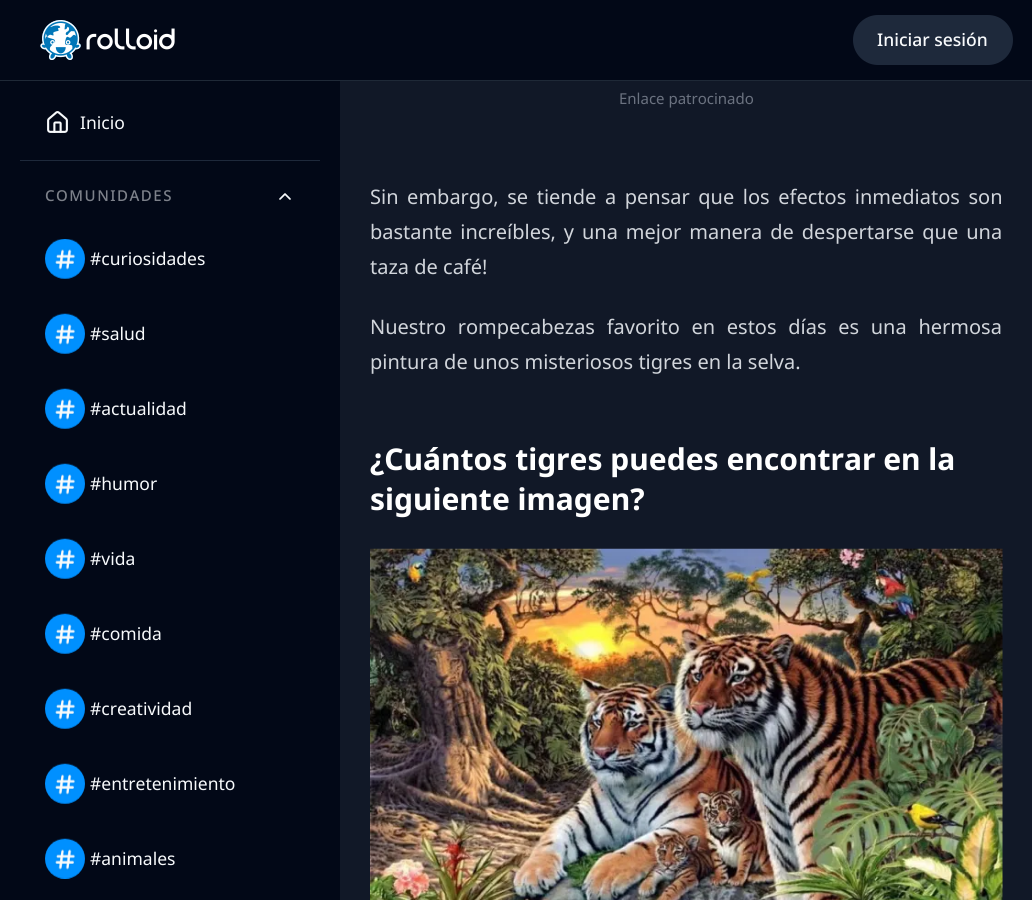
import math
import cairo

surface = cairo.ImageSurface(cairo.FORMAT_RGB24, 1032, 900)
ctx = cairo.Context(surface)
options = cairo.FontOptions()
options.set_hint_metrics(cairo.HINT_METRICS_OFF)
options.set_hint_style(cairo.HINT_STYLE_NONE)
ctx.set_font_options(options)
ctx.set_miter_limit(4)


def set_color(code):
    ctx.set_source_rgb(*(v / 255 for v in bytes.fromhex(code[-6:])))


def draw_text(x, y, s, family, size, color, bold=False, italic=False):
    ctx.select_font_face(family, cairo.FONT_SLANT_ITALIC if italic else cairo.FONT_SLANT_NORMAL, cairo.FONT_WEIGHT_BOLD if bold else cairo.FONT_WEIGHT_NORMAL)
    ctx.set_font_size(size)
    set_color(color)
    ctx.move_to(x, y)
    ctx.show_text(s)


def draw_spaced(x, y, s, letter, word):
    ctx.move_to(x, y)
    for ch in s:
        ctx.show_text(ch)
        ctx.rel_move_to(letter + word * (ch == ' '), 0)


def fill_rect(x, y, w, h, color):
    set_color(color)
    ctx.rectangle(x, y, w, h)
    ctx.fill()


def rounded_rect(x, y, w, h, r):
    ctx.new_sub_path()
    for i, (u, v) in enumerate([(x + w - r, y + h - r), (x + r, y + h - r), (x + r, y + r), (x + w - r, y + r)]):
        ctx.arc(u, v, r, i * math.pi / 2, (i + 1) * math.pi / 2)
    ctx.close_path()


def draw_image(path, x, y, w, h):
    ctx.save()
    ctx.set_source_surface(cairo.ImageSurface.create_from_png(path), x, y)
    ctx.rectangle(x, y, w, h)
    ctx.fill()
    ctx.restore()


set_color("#111827")
ctx.paint()
fill_rect(0, 0, 1032, 80, "#020817")
fill_rect(0, 80, 1032, 1, "#1f2937")
draw_image("assets/img1.png", 40, 20, 135, 40)
set_color("#1e293b")
rounded_rect(853, 15, 160, 50, 25)
ctx.fill()
draw_text(877, 46, "Iniciar sesión", "Noto Sans Medium", 17.5, "#f8fafc")
fill_rect(0, 81, 340, 819, "#020817")
draw_image("assets/img2.png", 47, 111, 21, 22)
draw_text(80, 129, "Inicio", "Noto Sans", 17.5, "#f8fafc")
fill_rect(20, 160, 300, 1, "#1e293b")
ctx.select_font_face("Noto Sans Medium")
ctx.set_font_size(15)
set_color("#7d818a")
draw_spaced(45, 201, "COMUNIDADES", 1.5, 0)
ctx.new_path()
ctx.move_to(290, 199)
ctx.line_to(285, 194)
ctx.line_to(280, 199)
set_color("#f8fafc")
ctx.set_line_width(1.7)
ctx.set_line_cap(cairo.LINE_CAP_ROUND)
ctx.set_line_join(cairo.LINE_JOIN_ROUND)
ctx.stroke()
draw_image("assets/img3.png", 45, 239, 40, 40)
draw_text(90, 265, "#curiosidades", "Noto Sans", 17.5, "#f8fafc")
draw_image("assets/img4.png", 45, 313, 40, 41)
draw_text(90, 340, "#salud", "Noto Sans", 17.5, "#f8fafc")
draw_image("assets/img4.png", 45, 388, 40, 41)
draw_text(90, 415, "#actualidad", "Noto Sans", 17.5, "#f8fafc")
draw_image("assets/img4.png", 45, 463, 40, 41)
draw_text(90, 490, "#humor", "Noto Sans", 17.5, "#f8fafc")
draw_image("assets/img4.png", 45, 538, 40, 41)
draw_text(90, 565, "#vida", "Noto Sans", 17.5, "#f8fafc")
draw_image("assets/img4.png", 45, 613, 40, 41)
draw_text(90, 640, "#comida", "Noto Sans", 17.5, "#f8fafc")
draw_image("assets/img4.png", 45, 688, 40, 41)
draw_text(90, 715, "#creatividad", "Noto Sans", 17.5, "#f8fafc")
draw_image("assets/img4.png", 45, 763, 40, 41)
draw_text(90, 790, "#entretenimiento", "Noto Sans", 17.5, "#f8fafc")
draw_image("assets/img5.png", 45, 838, 40, 41)
draw_text(90, 865, "#animales", "Noto Sans", 17.5, "#f8fafc")
draw_text(619, 104, "Enlace patrocinado", "Noto Sans", 15, "#6b7280")
ctx.set_font_size(20)
set_color("#d1d5db")
draw_spaced(370, 204, "Sin embargo, se tiende a pensar que los efectos inmediatos son", 0, 3.4)
draw_spaced(370, 239, "bastante increíbles, y una mejor manera de despertarse que una", 0, 2.75)
draw_text(370, 274, "taza de café!", "Noto Sans", 20, "#d1d5db")
draw_spaced(370, 334, "Nuestro rompecabezas favorito en estos días es una hermosa", 0, 6.5)
draw_text(370, 369, "pintura de unos misteriosos tigres en la selva.", "Noto Sans", 20, "#d1d5db")
draw_text(370, 470, "¿Cuántos tigres puedes encontrar en la", "Noto Sans", 30, "#ffffff", bold=True)
draw_text(370, 510, "siguiente imagen?", "Noto Sans", 30, "#ffffff", bold=True)
draw_image("assets/img6.png", 370, 548, 633, 352)
surface.write_to_png("output.png")
